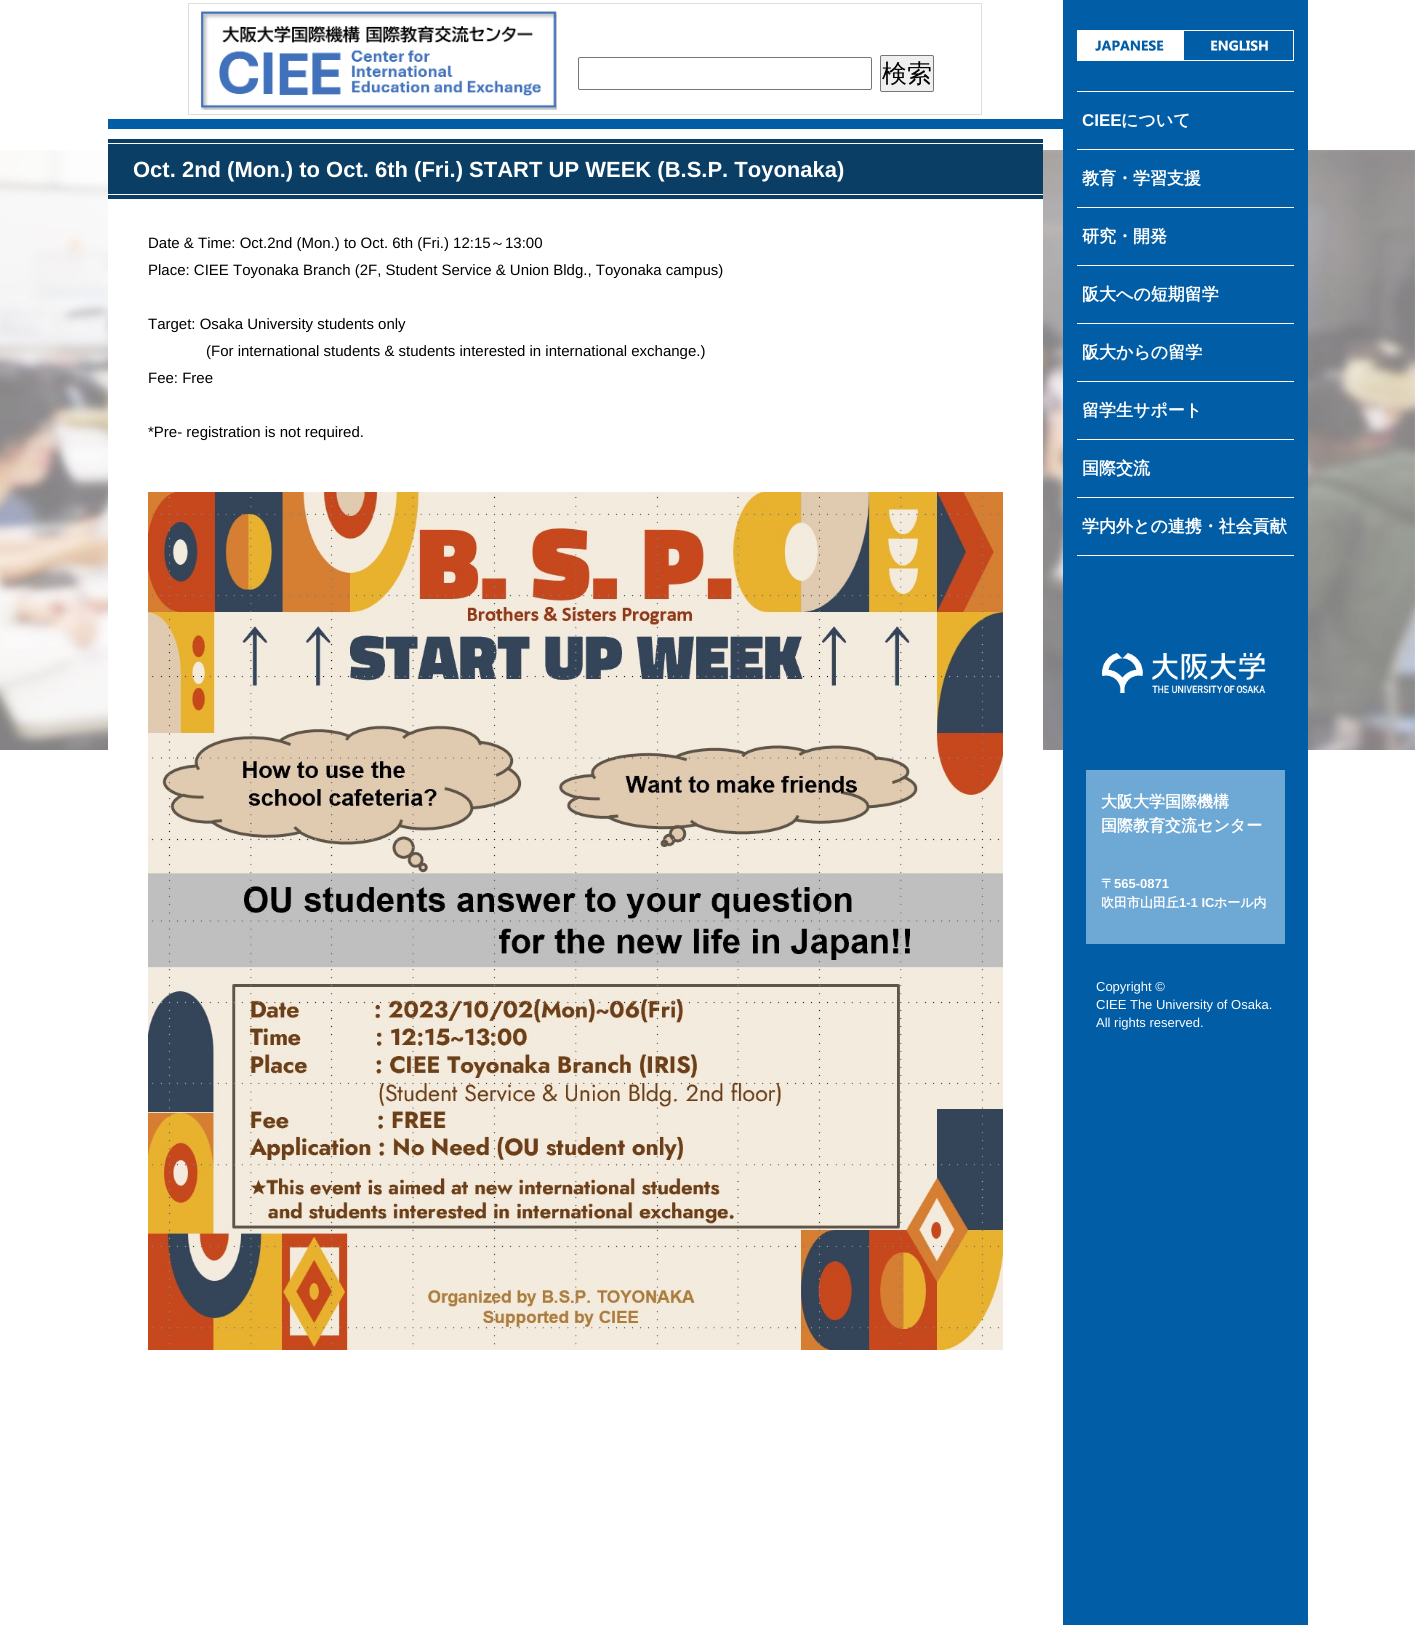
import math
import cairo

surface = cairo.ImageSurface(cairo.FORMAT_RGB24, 1415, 1625)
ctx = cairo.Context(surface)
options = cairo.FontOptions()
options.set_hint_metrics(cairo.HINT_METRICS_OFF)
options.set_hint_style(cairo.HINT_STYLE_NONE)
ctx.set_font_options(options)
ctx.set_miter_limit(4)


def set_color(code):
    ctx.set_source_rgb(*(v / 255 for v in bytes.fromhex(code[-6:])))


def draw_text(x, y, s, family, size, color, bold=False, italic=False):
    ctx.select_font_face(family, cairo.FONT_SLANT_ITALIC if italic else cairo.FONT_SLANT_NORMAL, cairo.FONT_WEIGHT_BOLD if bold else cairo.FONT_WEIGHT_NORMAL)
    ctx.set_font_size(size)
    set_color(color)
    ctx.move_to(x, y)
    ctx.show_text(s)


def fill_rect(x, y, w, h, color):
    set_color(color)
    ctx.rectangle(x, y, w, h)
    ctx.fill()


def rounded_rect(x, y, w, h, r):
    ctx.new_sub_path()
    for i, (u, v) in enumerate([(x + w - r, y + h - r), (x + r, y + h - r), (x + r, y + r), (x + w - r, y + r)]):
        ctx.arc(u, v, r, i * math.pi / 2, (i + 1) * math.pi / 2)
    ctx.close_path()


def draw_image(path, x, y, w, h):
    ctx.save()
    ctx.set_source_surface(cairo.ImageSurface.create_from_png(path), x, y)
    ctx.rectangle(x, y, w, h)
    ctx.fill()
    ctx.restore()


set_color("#ffffff")
ctx.paint()
draw_image("assets/img1.png", 0, 150, 1415, 600)
fill_rect(108, 119, 955, 10, "#015da6")
ctx.rectangle(188.5, 3.5, 793, 111)
set_color("#dedede")
ctx.set_line_width(1)
ctx.stroke()
draw_image("assets/img2.png", 200, 11, 357, 99)
rounded_rect(578.5, 57.5, 293, 32, 1.5)
set_color("#767676")
ctx.stroke()
set_color("#efefef")
rounded_rect(880.5, 55.5, 53, 36, 1.5)
ctx.fill_preserve()
set_color("#767676")
ctx.stroke()
draw_text(882, 82, "検索", "WenQuanYi Zen Hei Medium", 25, "#000000")
fill_rect(108, 199, 935, 551, "#ffffff")
fill_rect(108, 139, 935, 60, "#0b3e65")
fill_rect(108, 143, 935, 1, "#ffffff")
fill_rect(108, 194, 935, 1, "#ffffff")
draw_text(133, 177, "Oct. 2nd (Mon.) to Oct. 6th (Fri.) START UP WEEK (B.S.P. Toyonaka)", "Liberation Sans", 22, "#ffffff", bold=True)
draw_text(148, 248, "Date & Time: Oct.2nd (Mon.) to Oct. 6th (Fri.) 12:15", "Liberation Sans", 15, "#000000")
draw_text(490, 248, "～", "WenQuanYi Zen Hei Medium", 15, "#000000")
draw_text(505, 248, "13:00", "Liberation Sans", 15, "#000000")
draw_text(148, 275, "Place: CIEE Toyonaka Branch (2F, Student Service & Union Bldg., Toyonaka campus)", "Liberation Sans", 15, "#000000")
draw_text(148, 329, "Target: Osaka University students only", "Liberation Sans", 15, "#000000")
draw_text(206, 356, "(For international students & students interested in international exchange.)", "Liberation Sans", 15, "#000000")
draw_text(148, 383, "Fee: Free", "Liberation Sans", 15, "#000000")
draw_text(148, 437, "*Pre- registration is not required.", "Liberation Sans", 15, "#000000")
draw_image("assets/img3.png", 148, 492, 855, 858)
fill_rect(1063, 0, 245, 1625, "#015da6")
draw_image("assets/img4.png", 1077, 30, 217, 31)
fill_rect(1077, 91, 217, 1, "#ffffff")
fill_rect(1077, 149, 217, 1, "#ffffff")
draw_text(1082, 126, "CIEE", "Liberation Sans", 17, "#ffffff", bold=True)
draw_text(1121, 126, "について", "WenQuanYi Zen Hei", 17, "#ffffff", bold=True)
fill_rect(1077, 207, 217, 1, "#ffffff")
draw_text(1082, 184, "教育・学習支援", "WenQuanYi Zen Hei", 17, "#ffffff", bold=True)
fill_rect(1077, 265, 217, 1, "#ffffff")
draw_text(1082, 242, "研究・開発", "WenQuanYi Zen Hei", 17, "#ffffff", bold=True)
fill_rect(1077, 323, 217, 1, "#ffffff")
draw_text(1082, 300, "阪大への短期留学", "WenQuanYi Zen Hei", 17, "#ffffff", bold=True)
fill_rect(1077, 381, 217, 1, "#ffffff")
draw_text(1082, 358, "阪大からの留学", "WenQuanYi Zen Hei", 17, "#ffffff", bold=True)
fill_rect(1077, 439, 217, 1, "#ffffff")
draw_text(1082, 416, "留学生サポート", "WenQuanYi Zen Hei", 17, "#ffffff", bold=True)
fill_rect(1077, 497, 217, 1, "#ffffff")
draw_text(1082, 474, "国際交流", "WenQuanYi Zen Hei", 17, "#ffffff", bold=True)
fill_rect(1077, 555, 217, 1, "#ffffff")
draw_text(1082, 532, "学内外との連携・社会貢献", "WenQuanYi Zen Hei", 17, "#ffffff", bold=True)
draw_image("assets/img5.png", 1102, 652, 164, 42)
fill_rect(1086, 770, 199, 174, "#6ea8d5")
draw_text(1101, 807, "大阪大学国際機構", "WenQuanYi Zen Hei", 16, "#ffffff", bold=True)
draw_text(1101, 831, "国際教育交流センター", "WenQuanYi Zen Hei", 16, "#ffffff", bold=True)
draw_text(1101, 888, "〒", "WenQuanYi Zen Hei", 13, "#ffffff", bold=True)
draw_text(1114, 888, "565-0871", "Liberation Sans", 13, "#ffffff", bold=True)
draw_text(1101, 907, "吹田市山田丘", "WenQuanYi Zen Hei", 13, "#ffffff", bold=True)
draw_text(1179, 907, "1-1 IC", "Liberation Sans", 13, "#ffffff", bold=True)
draw_text(1214, 907, "ホール内", "WenQuanYi Zen Hei", 13, "#ffffff", bold=True)
draw_text(1096, 991, "Copyright ©", "Liberation Sans", 13, "#ffffff")
draw_text(1096, 1009, "CIEE The University of Osaka.", "Liberation Sans", 13, "#ffffff")
draw_text(1096, 1027, "All rights reserved.", "Liberation Sans", 13, "#ffffff")
surface.write_to_png("output.png")
